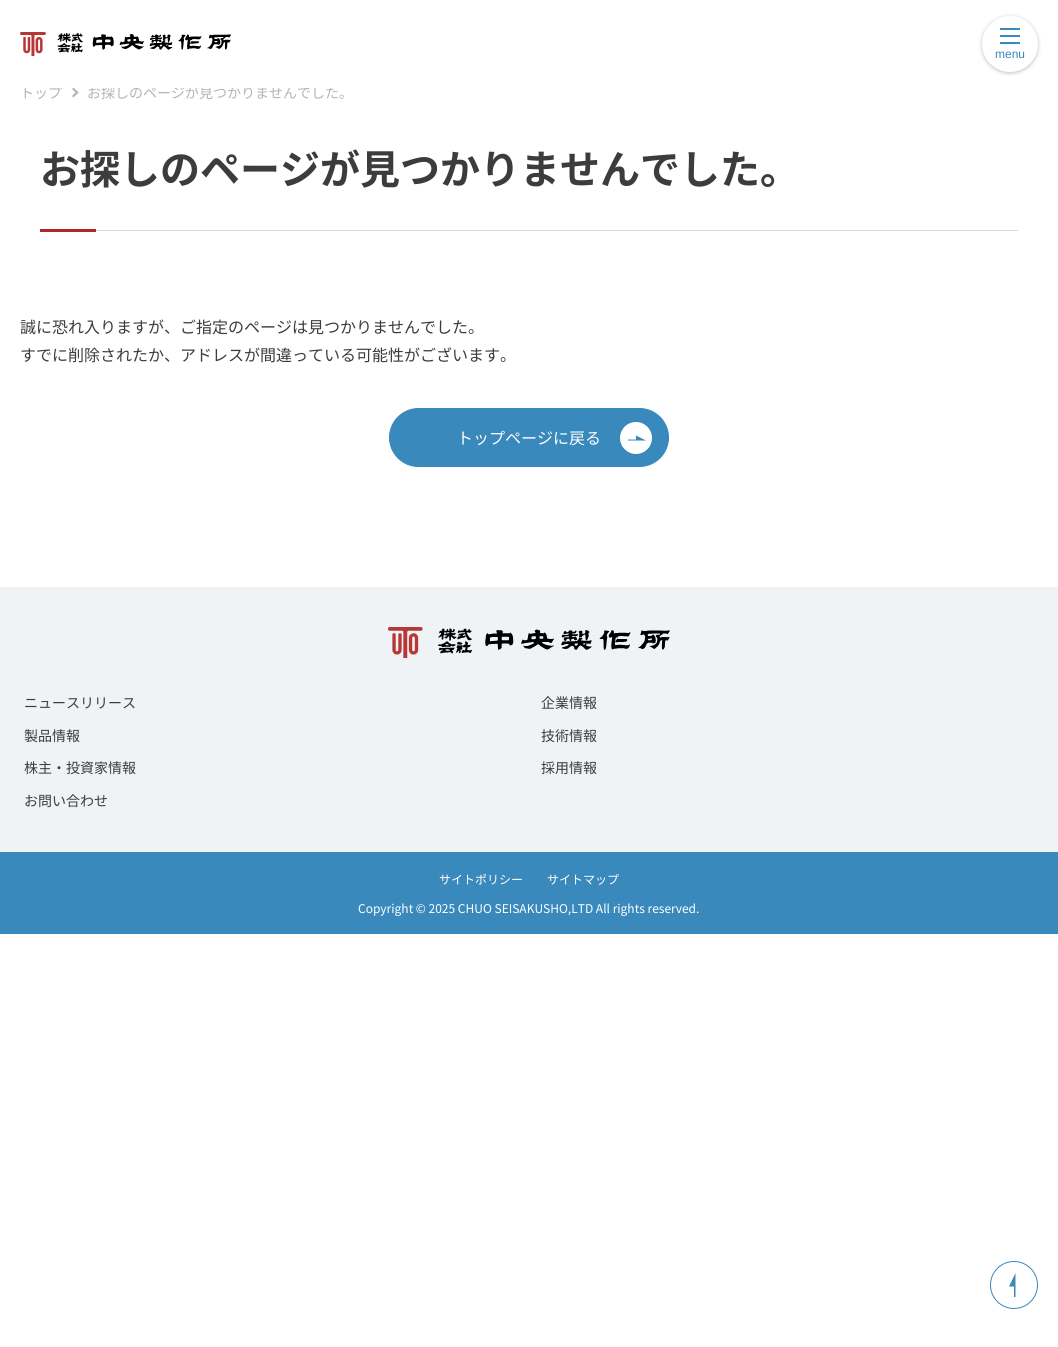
import math
import cairo

surface = cairo.ImageSurface(cairo.FORMAT_RGB24, 1058, 1347)
ctx = cairo.Context(surface)
options = cairo.FontOptions()
options.set_hint_metrics(cairo.HINT_METRICS_OFF)
options.set_hint_style(cairo.HINT_STYLE_NONE)
ctx.set_font_options(options)
ctx.set_miter_limit(4)


def set_color(code):
    ctx.set_source_rgb(*(v / 255 for v in bytes.fromhex(code[-6:])))


def draw_text(x, y, s, family, size, color, bold=False, italic=False):
    ctx.select_font_face(family, cairo.FONT_SLANT_ITALIC if italic else cairo.FONT_SLANT_NORMAL, cairo.FONT_WEIGHT_BOLD if bold else cairo.FONT_WEIGHT_NORMAL)
    ctx.set_font_size(size)
    set_color(color)
    ctx.move_to(x, y)
    ctx.show_text(s)


def fill_rect(x, y, w, h, color):
    set_color(color)
    ctx.rectangle(x, y, w, h)
    ctx.fill()


def rounded_rect(x, y, w, h, r):
    ctx.new_sub_path()
    for i, (u, v) in enumerate([(x + w - r, y + h - r), (x + r, y + h - r), (x + r, y + r), (x + w - r, y + r)]):
        ctx.arc(u, v, r, i * math.pi / 2, (i + 1) * math.pi / 2)
    ctx.close_path()


def draw_shadow(x, y, w, h, r, blur, alpha):
    ctx.push_group_with_content(cairo.CONTENT_ALPHA)
    ctx.set_operator(cairo.OPERATOR_SOURCE)
    for i in range(15, -16, -2):
        e = blur * i / 6
        if min(w, h) + 2 * e > 0:
            ctx.set_source_rgba(0, 0, 0, alpha * math.erfc((i - 1) / 8.5) / 2)
            rounded_rect(x - e, y - e, w + 2 * e, h + 2 * e, max(0, min(r + e + blur * .6, min(w, h) / 2 + e)))
            ctx.fill()
    ctx.mask(ctx.pop_group())


def draw_image(path, x, y, w, h):
    ctx.save()
    ctx.set_source_surface(cairo.ImageSurface.create_from_png(path), x, y)
    ctx.rectangle(x, y, w, h)
    ctx.fill()
    ctx.restore()


set_color("#ffffff")
ctx.paint()
draw_text(20, 98, "トップ", "Noto Sans JP", 14, "#b4b4b4")
ctx.new_path()
ctx.move_to(72, 89)
ctx.line_to(73.5, 87.5)
ctx.line_to(78.5, 92.5)
ctx.line_to(77, 94)
ctx.close_path()
ctx.fill()
draw_text(87, 98, "お探しのページが見つかりませんでした。", "Noto Sans JP", 14, "#b4b4b4")
fill_rect(24, 86, 308, 2, "#ffffff")
draw_image("assets/img1.png", 20, 32, 211, 24)
set_color("#000000")
draw_shadow(982, 17, 56, 56, 28, 2, 0.25)
set_color("#ffffff")
ctx.arc(1010, 44, 28, 0, 2 * math.pi)
ctx.fill()
fill_rect(1000, 28, 20, 2, "#3989bc")
fill_rect(1000, 35, 20, 2, "#3989bc")
fill_rect(1000, 42, 20, 2, "#3989bc")
draw_text(995, 58, "menu", "Liberation Sans", 12, "#3989bc")
set_color("#b4b4b4")
ctx.new_path()
ctx.move_to(72, 96)
ctx.line_to(77, 91)
ctx.line_to(78.5, 92.5)
ctx.line_to(73.5, 97.5)
ctx.close_path()
ctx.fill()
draw_text(40, 184, "お探しのページが見つかりませんでした。", "Noto Sans JP", 40, "#3c3c3c", bold=True)
fill_rect(40, 229, 56, 3, "#b22625")
fill_rect(96, 230, 922, 1, "#dbdbdb")
draw_text(20, 333, "誠に恐れ入りますが、ご指定のページは見つかりませんでした。", "Noto Sans JP", 16, "#3c3c3c")
draw_text(20, 361, "すでに削除されたか、アドレスが間違っている可能性がございます。", "Noto Sans JP", 16, "#3c3c3c")
set_color("#3989bc")
rounded_rect(389.5, 408.5, 279, 58, 29)
ctx.fill_preserve()
ctx.set_line_width(1)
ctx.stroke()
draw_text(457, 444, "トップページに戻る", "Noto Sans JP", 16, "#ffffff")
ctx.new_path()
ctx.arc(636, 438, 16, 0, 2 * math.pi)
ctx.fill()
set_color("#3989bc")
ctx.set_fill_rule(cairo.FILL_RULE_EVEN_ODD)
ctx.new_path()
ctx.move_to(640, 440.5)
ctx.line_to(646, 440.5)
ctx.line_to(636, 435.5)
ctx.line_to(636, 439.5)
ctx.line_to(628, 439.5)
ctx.line_to(628, 440.5)
ctx.close_path()
ctx.fill()
fill_rect(0, 587, 1058, 265, "#f0f3f5")
draw_image("assets/img2.png", 388, 627, 282, 31)
draw_text(24, 708, "ニュースリリース", "Noto Sans JP", 14, "#3c3c3c")
draw_text(541, 708, "企業情報", "Noto Sans JP", 14, "#3c3c3c")
draw_text(24, 741, "製品情報", "Noto Sans JP", 14, "#3c3c3c")
draw_text(541, 741, "技術情報", "Noto Sans JP", 14, "#3c3c3c")
draw_text(24, 773, "株主・投資家情報", "Noto Sans JP", 14, "#3c3c3c")
draw_text(541, 773, "採用情報", "Noto Sans JP", 14, "#3c3c3c")
draw_text(24, 806, "お問い合わせ", "Noto Sans JP", 14, "#3c3c3c")
fill_rect(0, 852, 1058, 82, "#3989bc")
draw_text(439, 884, "サイトポリシー", "Noto Sans JP", 12, "#ffffff")
draw_text(547, 884, "サイトマップ", "Noto Sans JP", 12, "#ffffff")
draw_text(358, 913, "Copyright © 2025 CHUO SEISAKUSHO,LTD All rights reserved.", "Noto Sans JP", 12, "#ffffff")
ctx.new_path()
ctx.arc(1014, 1285, 23.5, 0, 2 * math.pi)
set_color("#3989bc")
ctx.stroke()
ctx.new_path()
ctx.move_to(1015.5, 1281)
ctx.line_to(1015.5, 1273)
ctx.line_to(1009, 1286.5)
ctx.line_to(1014, 1286.5)
ctx.line_to(1014, 1297)
ctx.line_to(1015.5, 1297)
ctx.close_path()
ctx.fill()
surface.write_to_png("output.png")
